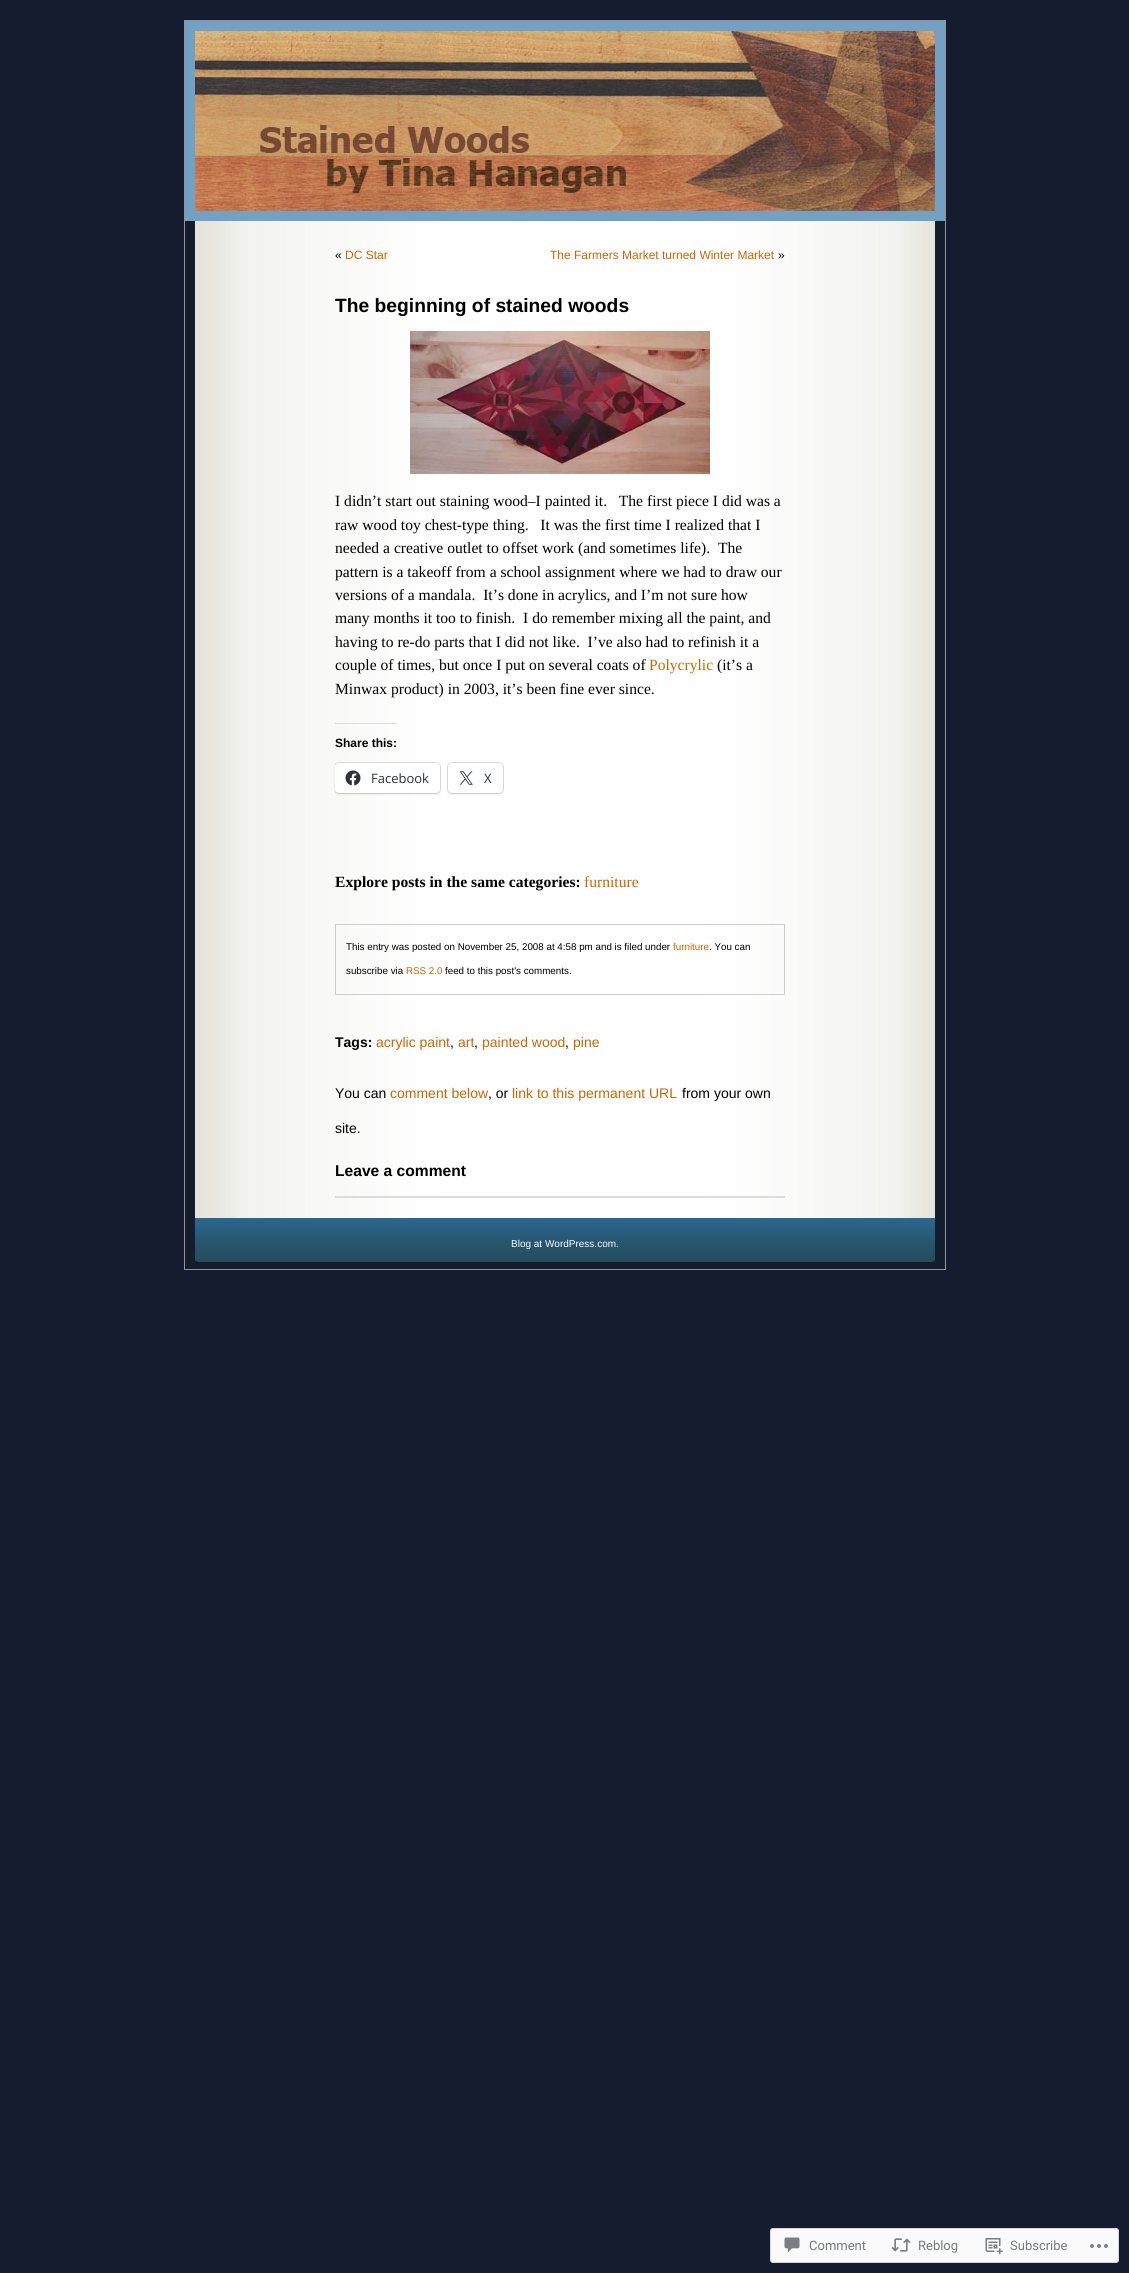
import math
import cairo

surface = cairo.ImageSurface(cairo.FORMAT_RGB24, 1129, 2273)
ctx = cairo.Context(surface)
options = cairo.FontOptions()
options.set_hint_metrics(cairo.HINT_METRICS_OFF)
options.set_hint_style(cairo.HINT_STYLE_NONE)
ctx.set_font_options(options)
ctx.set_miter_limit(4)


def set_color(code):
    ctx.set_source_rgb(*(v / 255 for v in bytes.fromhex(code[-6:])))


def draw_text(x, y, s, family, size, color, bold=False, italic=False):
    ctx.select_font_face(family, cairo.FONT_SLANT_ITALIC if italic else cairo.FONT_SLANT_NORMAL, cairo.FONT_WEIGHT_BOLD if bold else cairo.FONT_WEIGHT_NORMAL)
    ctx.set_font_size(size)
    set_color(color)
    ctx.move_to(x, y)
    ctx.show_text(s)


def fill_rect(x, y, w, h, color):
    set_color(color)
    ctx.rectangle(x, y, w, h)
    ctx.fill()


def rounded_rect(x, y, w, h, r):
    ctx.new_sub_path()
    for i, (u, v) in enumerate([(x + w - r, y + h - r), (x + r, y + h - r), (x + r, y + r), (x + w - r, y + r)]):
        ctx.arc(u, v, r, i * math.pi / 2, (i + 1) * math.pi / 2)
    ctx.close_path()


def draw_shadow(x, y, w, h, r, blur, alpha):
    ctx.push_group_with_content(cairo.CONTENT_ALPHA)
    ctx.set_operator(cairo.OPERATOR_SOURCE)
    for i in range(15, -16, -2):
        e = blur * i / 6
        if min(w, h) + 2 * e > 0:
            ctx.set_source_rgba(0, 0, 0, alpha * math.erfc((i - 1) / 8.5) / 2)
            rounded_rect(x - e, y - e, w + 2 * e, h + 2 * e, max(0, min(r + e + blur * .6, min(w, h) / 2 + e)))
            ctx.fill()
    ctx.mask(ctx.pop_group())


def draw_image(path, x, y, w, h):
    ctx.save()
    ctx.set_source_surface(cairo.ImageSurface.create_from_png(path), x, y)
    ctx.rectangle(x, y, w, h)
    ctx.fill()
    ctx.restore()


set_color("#151c2f")
ctx.paint()
draw_image("assets/img1.png", 185, 221, 760, 997)
ctx.rectangle(184.5, 20.5, 761, 1249)
set_color("#959596")
ctx.set_line_width(1)
ctx.stroke()
fill_rect(185, 21, 760, 200, "#73a0c5")
draw_image("assets/img2.png", 195, 31, 740, 180)
draw_text(335, 259, "«", "Liberation Sans", 12, "#000000")
draw_text(345, 259, "DC Star", "Liberation Sans", 12, "#cc6600")
draw_text(550, 259, "The Farmers Market turned Winter Market", "Liberation Sans", 12, "#cc6600")
draw_text(778, 259, "»", "Liberation Sans", 12, "#000000")
draw_text(335, 312, "The beginning of stained woods", "Liberation Sans", 19.25, "#000000", bold=True)
draw_image("assets/img3.png", 410, 331, 300, 143)
draw_text(335, 506, "I didn’t start out staining wood–I painted it.   The first piece I did was a", "Liberation Serif", 15.6, "#000000")
draw_text(335, 530, "raw wood toy chest-type thing.   It was the first time I realized that I", "Liberation Serif", 15.6, "#000000")
draw_text(335, 553, "needed a creative outlet to offset work (and sometimes life).  The", "Liberation Serif", 15.6, "#000000")
draw_text(335, 577, "pattern is a takeoff from a school assignment where we had to draw our", "Liberation Serif", 15.6, "#000000")
draw_text(335, 600, "versions of a mandala.  It’s done in acrylics, and I’m not sure how", "Liberation Serif", 15.6, "#000000")
draw_text(335, 623, "many months it too to finish.  I do remember mixing all the paint, and", "Liberation Serif", 15.6, "#000000")
draw_text(335, 647, "having to re-do parts that I did not like.  I’ve also had to refinish it a", "Liberation Serif", 15.6, "#000000")
draw_text(335, 670, "couple of times, but once I put on several coats of", "Liberation Serif", 15.6, "#000000")
draw_text(649, 670, "Polycrylic", "Liberation Serif", 15.6, "#cc6600")
draw_text(717, 670, "(it’s a", "Liberation Serif", 15.6, "#000000")
draw_text(335, 694, "Minwax product) in 2003, it’s been fine ever since.", "Liberation Serif", 15.6, "#000000")
fill_rect(335, 723, 62, 1, "#dcdcde")
draw_text(335, 747, "Share this:", "Liberation Sans", 12, "#000000", bold=True)
ctx.save()
ctx.rectangle(335, 226, 450, 992)
ctx.clip()
rounded_rect(334.5, 762.5, 106, 31, 4.5)
ctx.set_source_rgba(0, 0, 0, 0.12)
ctx.stroke()
ctx.restore()
set_color("#000000")
draw_shadow(335, 764, 105, 30, 4, 1, 0.12)
set_color("#ffffff")
rounded_rect(335, 763, 105, 30, 4)
ctx.fill()
draw_image("assets/img4.png", 345, 770, 16, 16)
draw_text(371, 783, "Facebook", "Open Sans", 13, "#2c3338")
rounded_rect(447.5, 762.5, 56, 31, 4.5)
set_color("#e0e0e0")
ctx.stroke()
set_color("#000000")
draw_shadow(448, 764, 55, 30, 4, 1, 0.12)
set_color("#ffffff")
rounded_rect(448, 763, 55, 30, 4)
ctx.fill()
draw_image("assets/img5.png", 459, 771, 14, 14)
draw_text(484, 783, "X", "Open Sans", 13, "#2c3338")
draw_text(335, 887, "Explore posts in the same categories:", "Liberation Serif", 15.6, "#000000", bold=True)
draw_text(584, 887, "furniture", "Liberation Serif", 15.6, "#cc6600")
ctx.rectangle(335.5, 924.5, 449, 70)
set_color("#cecece")
ctx.stroke()
draw_text(346, 950, "This entry was posted on November 25, 2008 at 4:58 pm and is filed under", "Liberation Sans", 9.8, "#000000")
draw_text(673, 950, "furniture", "Liberation Sans", 9.8, "#cc6600")
draw_text(709, 950, ". You can", "Liberation Sans", 9.8, "#000000")
draw_text(346, 974, "subscribe via", "Liberation Sans", 9.8, "#000000")
draw_text(406, 974, "RSS 2.0", "Liberation Sans", 9.8, "#cc6600")
draw_text(445, 974, "feed to this post's comments.", "Liberation Sans", 9.8, "#000000")
draw_text(335, 1047, "Tags:", "Liberation Sans", 14, "#000000", bold=True)
draw_text(376, 1047, "acrylic paint", "Liberation Sans", 14, "#cc6600")
draw_text(450, 1047, ",", "Liberation Sans", 14, "#000000")
draw_text(458, 1047, "art", "Liberation Sans", 14, "#cc6600")
draw_text(474, 1047, ",", "Liberation Sans", 14, "#000000")
draw_text(482, 1047, "painted wood", "Liberation Sans", 14, "#cc6600")
draw_text(565, 1047, ",", "Liberation Sans", 14, "#000000")
draw_text(573, 1047, "pine", "Liberation Sans", 14, "#cc6600")
draw_text(335, 1098, "You can", "Liberation Sans", 14, "#000000")
draw_text(390, 1098, "comment below", "Liberation Sans", 14, "#cc6600")
draw_text(488, 1098, ", or", "Liberation Sans", 14, "#000000")
draw_text(512, 1098, "link to this permanent URL", "Liberation Sans", 14, "#cc6600")
draw_text(682, 1098, "from your own", "Liberation Sans", 14, "#000000")
draw_text(335, 1133, "site.", "Liberation Sans", 14, "#000000")
draw_text(335, 1176, "Leave a comment", "Liberation Sans", 15.6, "#000000", bold=True)
fill_rect(335, 1196, 450, 2, "#dcdcde")
draw_image("assets/img6.png", 185, 1218, 760, 51)
draw_text(511, 1247, "Blog at WordPress.com.", "Liberation Sans", 10, "#ffffff")
set_color("#fafafb")
rounded_rect(770.5, 2228.5, 348, 34, 2.5)
ctx.fill_preserve()
set_color("#d8d8db")
ctx.stroke()
draw_image("assets/img7.png", 784, 2237, 16, 16)
draw_text(809, 2250, "Comment", "Roboto", 13, "#767a80")
draw_image("assets/img8.png", 891, 2238, 20, 14)
draw_text(918, 2250, "Reblog", "Roboto", 13, "#767a80")
draw_image("assets/img9.png", 985, 2238, 18, 17)
draw_text(1010, 2250, "Subscribe", "Roboto", 13, "#767a80")
draw_image("assets/img10.png", 1090, 2244, 18, 4)
surface.write_to_png("output.png")
